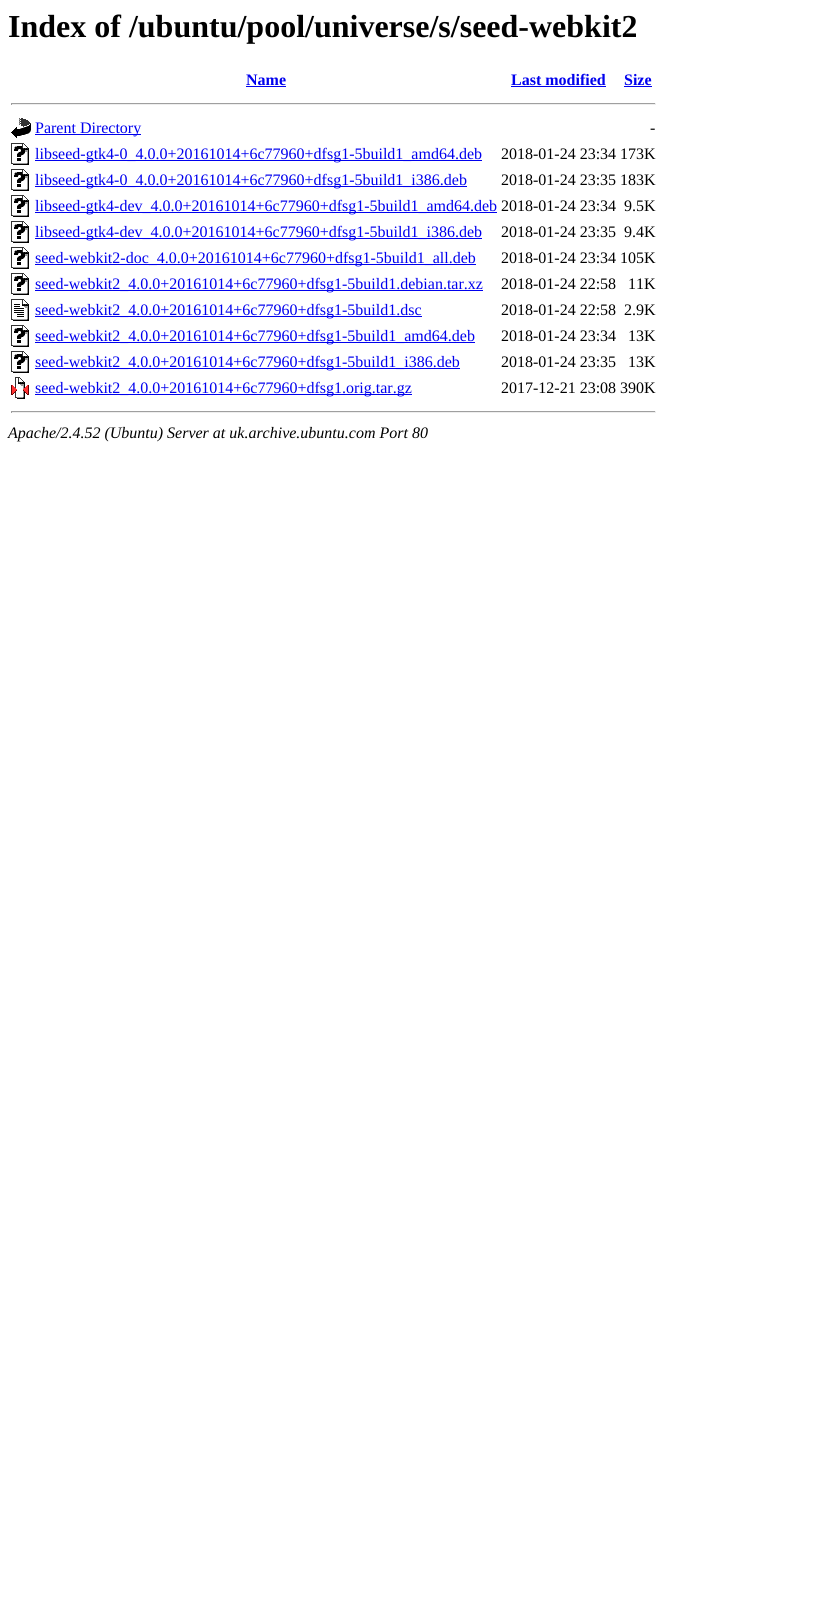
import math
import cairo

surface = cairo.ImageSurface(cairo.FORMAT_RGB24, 828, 1615)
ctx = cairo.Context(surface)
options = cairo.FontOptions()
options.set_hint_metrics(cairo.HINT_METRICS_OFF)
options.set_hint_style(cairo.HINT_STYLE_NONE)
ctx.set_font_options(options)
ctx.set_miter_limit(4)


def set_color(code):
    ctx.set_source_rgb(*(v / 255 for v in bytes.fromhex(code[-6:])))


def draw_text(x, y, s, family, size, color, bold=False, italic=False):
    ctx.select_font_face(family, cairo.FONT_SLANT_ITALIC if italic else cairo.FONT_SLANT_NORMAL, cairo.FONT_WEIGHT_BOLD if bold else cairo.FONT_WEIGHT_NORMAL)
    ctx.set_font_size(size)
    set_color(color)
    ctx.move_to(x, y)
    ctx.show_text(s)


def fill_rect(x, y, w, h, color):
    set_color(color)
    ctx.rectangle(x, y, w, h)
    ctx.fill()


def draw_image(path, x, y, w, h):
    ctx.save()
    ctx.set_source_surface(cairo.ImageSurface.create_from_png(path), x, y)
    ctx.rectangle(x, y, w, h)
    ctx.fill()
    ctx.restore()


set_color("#ffffff")
ctx.paint()
draw_text(8, 37, "Index of /ubuntu/pool/universe/s/seed-webkit2", "Liberation Serif", 32, "#000000", bold=True)
draw_text(246, 85, "Name", "Liberation Serif", 16, "#0000ee", bold=True)
fill_rect(246, 86, 40, 1, "#0000ee")
draw_text(511, 85, "Last modified", "Liberation Serif", 16, "#0000ee", bold=True)
fill_rect(511, 86, 95, 1, "#0000ee")
draw_text(624, 85, "Size", "Liberation Serif", 16, "#0000ee", bold=True)
fill_rect(624, 86, 28, 1, "#0000ee")
fill_rect(11, 103, 645, 1, "#9f9f9f")
fill_rect(655, 103, 1, 2, "#eeeeee")
fill_rect(11, 104, 645, 1, "#eeeeee")
fill_rect(11, 103, 1, 2, "#9f9f9f")
draw_image("assets/img1.png", 11, 118, 20, 20)
fill_rect(35, 134, 106, 1, "#0000ee")
draw_text(35, 133, "Parent Directory", "Liberation Serif", 16, "#0000ee")
draw_text(650, 133, "-", "Liberation Serif", 16, "#000000")
draw_image("assets/img2.png", 11, 143, 18, 22)
fill_rect(35, 160, 447, 1, "#0000ee")
draw_text(35, 159, "libseed-gtk4-0_4.0.0+20161014+6c77960+dfsg1-5build1_amd64.deb", "Liberation Serif", 16, "#0000ee")
draw_text(501, 159, "2018-01-24 23:34 173K", "Liberation Serif", 16, "#000000")
draw_image("assets/img2.png", 11, 169, 18, 22)
fill_rect(35, 186, 432, 1, "#0000ee")
draw_text(35, 185, "libseed-gtk4-0_4.0.0+20161014+6c77960+dfsg1-5build1_i386.deb", "Liberation Serif", 16, "#0000ee")
draw_text(501, 185, "2018-01-24 23:35 183K", "Liberation Serif", 16, "#000000")
draw_image("assets/img2.png", 11, 195, 18, 22)
fill_rect(35, 212, 462, 1, "#0000ee")
draw_text(35, 211, "libseed-gtk4-dev_4.0.0+20161014+6c77960+dfsg1-5build1_amd64.deb", "Liberation Serif", 16, "#0000ee")
draw_text(501, 211, "2018-01-24 23:34", "Liberation Serif", 16, "#000000")
draw_text(624, 211, "9.5K", "Liberation Serif", 16, "#000000")
draw_image("assets/img2.png", 11, 221, 18, 22)
fill_rect(35, 238, 447, 1, "#0000ee")
draw_text(35, 237, "libseed-gtk4-dev_4.0.0+20161014+6c77960+dfsg1-5build1_i386.deb", "Liberation Serif", 16, "#0000ee")
draw_text(501, 237, "2018-01-24 23:35", "Liberation Serif", 16, "#000000")
draw_text(624, 237, "9.4K", "Liberation Serif", 16, "#000000")
draw_image("assets/img2.png", 11, 247, 18, 22)
fill_rect(35, 264, 441, 1, "#0000ee")
draw_text(35, 263, "seed-webkit2-doc_4.0.0+20161014+6c77960+dfsg1-5build1_all.deb", "Liberation Serif", 16, "#0000ee")
draw_text(501, 263, "2018-01-24 23:34 105K", "Liberation Serif", 16, "#000000")
draw_image("assets/img2.png", 11, 273, 18, 22)
fill_rect(35, 290, 448, 1, "#0000ee")
draw_text(35, 289, "seed-webkit2_4.0.0+20161014+6c77960+dfsg1-5build1.debian.tar.xz", "Liberation Serif", 16, "#0000ee")
draw_text(501, 289, "2018-01-24 22:58", "Liberation Serif", 16, "#000000")
draw_text(628, 289, "11K", "Liberation Serif", 16, "#000000")
draw_image("assets/img3.png", 11, 299, 18, 22)
fill_rect(35, 316, 387, 1, "#0000ee")
draw_text(35, 315, "seed-webkit2_4.0.0+20161014+6c77960+dfsg1-5build1.dsc", "Liberation Serif", 16, "#0000ee")
draw_text(501, 315, "2018-01-24 22:58", "Liberation Serif", 16, "#000000")
draw_text(624, 315, "2.9K", "Liberation Serif", 16, "#000000")
draw_image("assets/img2.png", 11, 325, 18, 22)
fill_rect(35, 342, 440, 1, "#0000ee")
draw_text(35, 341, "seed-webkit2_4.0.0+20161014+6c77960+dfsg1-5build1_amd64.deb", "Liberation Serif", 16, "#0000ee")
draw_text(501, 341, "2018-01-24 23:34", "Liberation Serif", 16, "#000000")
draw_text(628, 341, "13K", "Liberation Serif", 16, "#000000")
draw_image("assets/img2.png", 11, 351, 18, 22)
fill_rect(35, 368, 425, 1, "#0000ee")
draw_text(35, 367, "seed-webkit2_4.0.0+20161014+6c77960+dfsg1-5build1_i386.deb", "Liberation Serif", 16, "#0000ee")
draw_text(501, 367, "2018-01-24 23:35", "Liberation Serif", 16, "#000000")
draw_text(628, 367, "13K", "Liberation Serif", 16, "#000000")
draw_image("assets/img4.png", 11, 377, 18, 22)
fill_rect(35, 394, 377, 1, "#0000ee")
draw_text(35, 393, "seed-webkit2_4.0.0+20161014+6c77960+dfsg1.orig.tar.gz", "Liberation Serif", 16, "#0000ee")
draw_text(501, 393, "2017-12-21 23:08 390K", "Liberation Serif", 16, "#000000")
fill_rect(11, 411, 645, 1, "#9f9f9f")
fill_rect(655, 411, 1, 2, "#eeeeee")
fill_rect(11, 412, 645, 1, "#eeeeee")
fill_rect(11, 411, 1, 2, "#9f9f9f")
draw_text(8, 438, "Apache/2.4.52 (Ubuntu) Server at uk.archive.ubuntu.com Port 80", "Liberation Serif", 16, "#000000", italic=True)
surface.write_to_png("output.png")
